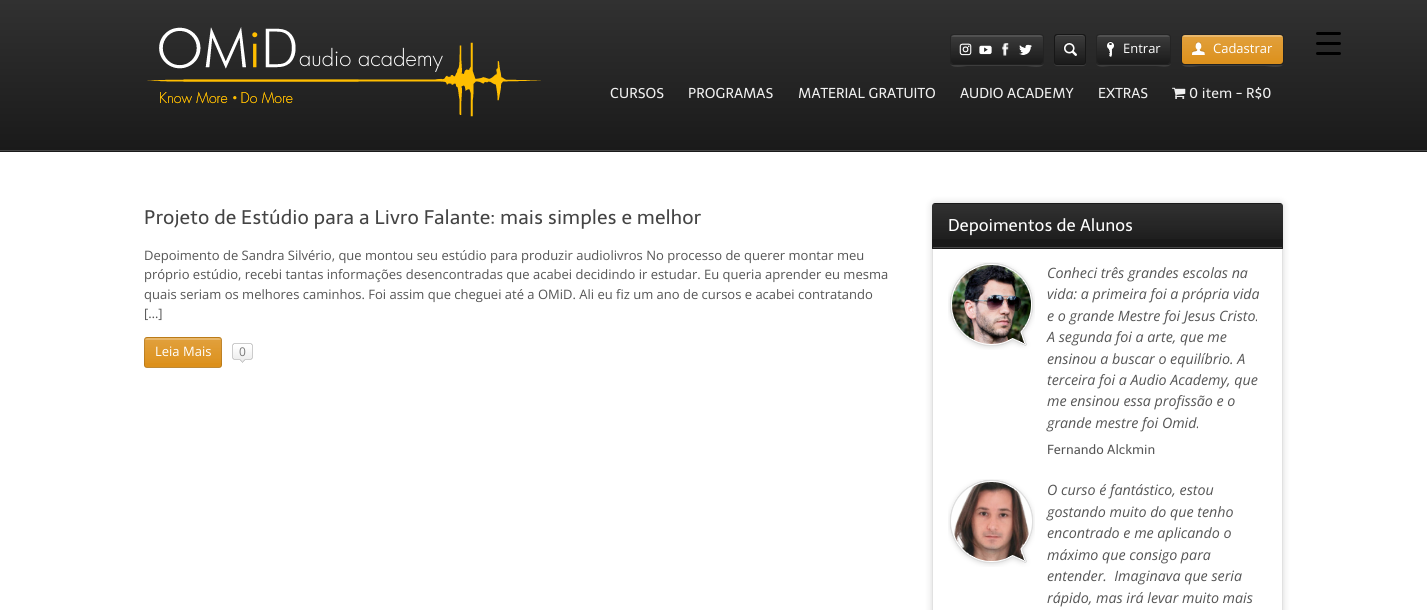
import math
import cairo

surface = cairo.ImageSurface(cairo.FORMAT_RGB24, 1427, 610)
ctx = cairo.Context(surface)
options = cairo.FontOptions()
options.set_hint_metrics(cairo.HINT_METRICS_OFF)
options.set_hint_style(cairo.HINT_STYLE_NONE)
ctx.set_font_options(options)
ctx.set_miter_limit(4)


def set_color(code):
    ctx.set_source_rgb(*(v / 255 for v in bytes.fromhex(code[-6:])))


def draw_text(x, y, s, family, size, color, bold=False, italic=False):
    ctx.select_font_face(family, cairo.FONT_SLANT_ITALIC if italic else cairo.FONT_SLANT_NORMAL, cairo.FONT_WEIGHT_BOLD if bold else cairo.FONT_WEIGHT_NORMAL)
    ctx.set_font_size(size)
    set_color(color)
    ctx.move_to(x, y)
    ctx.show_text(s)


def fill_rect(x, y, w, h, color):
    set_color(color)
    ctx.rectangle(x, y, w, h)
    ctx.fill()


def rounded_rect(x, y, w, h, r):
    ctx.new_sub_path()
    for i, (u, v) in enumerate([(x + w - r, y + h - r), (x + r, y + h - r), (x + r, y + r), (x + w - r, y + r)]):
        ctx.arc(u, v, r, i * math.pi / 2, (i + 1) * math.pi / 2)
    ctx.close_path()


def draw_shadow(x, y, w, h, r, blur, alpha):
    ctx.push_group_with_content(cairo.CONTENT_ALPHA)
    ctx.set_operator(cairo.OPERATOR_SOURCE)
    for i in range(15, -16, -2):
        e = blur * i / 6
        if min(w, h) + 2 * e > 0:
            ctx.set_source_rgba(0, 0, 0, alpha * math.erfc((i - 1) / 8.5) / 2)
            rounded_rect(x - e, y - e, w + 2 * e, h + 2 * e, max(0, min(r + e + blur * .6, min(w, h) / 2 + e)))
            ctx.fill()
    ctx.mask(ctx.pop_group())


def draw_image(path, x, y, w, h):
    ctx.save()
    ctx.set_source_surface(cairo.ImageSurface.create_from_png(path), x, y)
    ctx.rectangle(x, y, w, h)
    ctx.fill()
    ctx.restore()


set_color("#ffffff")
ctx.paint()
gradient = cairo.LinearGradient(714, 1, 714, 150)
gradient.add_color_stop_rgba(0, 0.192, 0.192, 0.192, 1)
gradient.add_color_stop_rgba(1, 0.102, 0.102, 0.102, 1)
ctx.set_source(gradient)
ctx.rectangle(0, 1, 1427, 149)
ctx.fill()
fill_rect(0, 0, 1427, 1, "#313131")
fill_rect(0, 150, 1427, 1, "#464646")
draw_image("assets/img1.png", 147, 27, 394, 90)
set_color("#3d3d3d")
ctx.new_path()
ctx.move_to(950, 62)
ctx.curve_to(950, 70, 964, 66, 968, 66)
ctx.line_to(1026, 66)
ctx.curve_to(1030, 66, 1044, 70, 1044, 62)
ctx.curve_to(1044, 64, 1043, 65, 1041, 65)
ctx.line_to(953, 65)
ctx.curve_to(951, 65, 950, 64, 950, 62)
ctx.close_path()
ctx.fill()
rounded_rect(950.5, 34.5, 93, 30, 2.5)
ctx.set_source_rgba(0, 0, 0, 0.15)
ctx.set_line_width(1)
ctx.stroke()
set_color("#1a1a1a")
rounded_rect(951, 35, 92, 29, 3)
ctx.fill()
gradient = cairo.LinearGradient(997, 35, 997, 64)
gradient.add_color_stop_rgba(0, 1, 1, 1, 0.15)
gradient.add_color_stop_rgba(1, 1, 1, 1, 0)
ctx.set_source(gradient)
rounded_rect(951, 35, 92, 29, 3)
ctx.fill()
draw_image("assets/img2.png", 951, 35, 92, 2)
draw_image("assets/img3.png", 959, 43, 73, 13)
set_color("#3d3d3d")
ctx.new_path()
ctx.move_to(1054, 62)
ctx.curve_to(1054, 67, 1057.5, 66, 1061.5, 66)
ctx.line_to(1078.5, 66)
ctx.curve_to(1082.5, 66, 1086, 67, 1086, 62)
ctx.curve_to(1086, 63.5, 1084.5, 65, 1083, 65)
ctx.line_to(1057, 65)
ctx.curve_to(1055.5, 65, 1054, 63.5, 1054, 62)
ctx.close_path()
ctx.fill()
set_color("#1a1a1a")
rounded_rect(1054, 34, 32, 31, 3)
ctx.fill()
draw_image("assets/img4.png", 1063, 42, 14, 14)
rounded_rect(1054.5, 34.5, 31, 30, 2.5)
ctx.set_source_rgba(0, 0, 0, 0.1)
ctx.stroke()
gradient = cairo.LinearGradient(1070, 35, 1070, 64)
gradient.add_color_stop_rgba(0, 1, 1, 1, 0.15)
gradient.add_color_stop_rgba(1, 1, 1, 1, 0)
ctx.set_source(gradient)
rounded_rect(1055, 35, 30, 29, 3)
ctx.fill()
ctx.set_source_rgba(1, 1, 1, 0.1)
ctx.new_path()
ctx.move_to(1058, 36)
ctx.line_to(1082, 36)
ctx.curve_to(1084, 36, 1085, 37, 1085, 39)
ctx.curve_to(1085, 34.5, 1082, 35, 1078, 35)
ctx.line_to(1062, 35)
ctx.curve_to(1058, 35, 1055, 34.5, 1055, 39)
ctx.curve_to(1055, 37, 1056, 36, 1058, 36)
ctx.close_path()
ctx.fill()
set_color("#3d3d3d")
ctx.new_path()
ctx.move_to(1096, 62)
ctx.curve_to(1096, 69, 1106, 66, 1110, 66)
ctx.line_to(1156, 66)
ctx.curve_to(1161, 66, 1171, 69, 1171, 62)
ctx.curve_to(1171, 64, 1170, 65, 1168, 65)
ctx.line_to(1099, 65)
ctx.curve_to(1097, 65, 1096, 64, 1096, 62)
ctx.close_path()
ctx.fill()
rounded_rect(1096.5, 34.5, 74, 30, 2.5)
ctx.set_source_rgba(0, 0, 0, 0.15)
ctx.stroke()
set_color("#1a1a1a")
rounded_rect(1097, 35, 73, 29, 3)
ctx.fill()
gradient = cairo.LinearGradient(1134, 35, 1134, 64)
gradient.add_color_stop_rgba(0, 1, 1, 1, 0.15)
gradient.add_color_stop_rgba(1, 1, 1, 1, 0)
ctx.set_source(gradient)
rounded_rect(1097, 35, 73, 29, 3)
ctx.fill()
draw_image("assets/img5.png", 1097, 35, 73, 2)
draw_image("assets/img6.png", 1107, 41, 7, 16)
draw_text(1123, 53, "Entrar", "Open Sans", 13, "#ffffff")
set_color("#3d3d3d")
ctx.new_path()
ctx.move_to(1181, 62)
ctx.curve_to(1181, 70, 1197, 66, 1200, 66)
ctx.line_to(1265, 66)
ctx.curve_to(1268, 66, 1284, 70, 1284, 62)
ctx.curve_to(1284, 64, 1283, 65, 1281, 65)
ctx.line_to(1184, 65)
ctx.curve_to(1182, 65, 1181, 64, 1181, 62)
ctx.close_path()
ctx.fill()
rounded_rect(1181.5, 34.5, 102, 30, 2.5)
ctx.set_source_rgba(0, 0, 0, 0.15)
ctx.stroke()
set_color("#dc901b")
rounded_rect(1182, 35, 101, 29, 3)
ctx.fill()
gradient = cairo.LinearGradient(1233, 35, 1233, 64)
gradient.add_color_stop_rgba(0, 1, 1, 1, 0.15)
gradient.add_color_stop_rgba(1, 1, 1, 1, 0)
ctx.set_source(gradient)
rounded_rect(1182, 35, 101, 29, 3)
ctx.fill()
draw_image("assets/img7.png", 1182, 35, 101, 2)
draw_image("assets/img8.png", 1192, 42, 13, 13)
draw_text(1213, 53, "Cadastrar", "Open Sans", 13, "#ffffff")
draw_text(610, 98, "CURSOS", "Telex", 14.25, "#f0f0f0")
draw_text(688, 98, "PROGRAMAS", "Telex", 14.25, "#f0f0f0")
draw_text(798, 98, "MATERIAL GRATUITO", "Telex", 14.25, "#f0f0f0")
draw_text(960, 98, "AUDIO ACADEMY", "Telex", 14.25, "#f0f0f0")
draw_text(1098, 98, "EXTRAS", "Telex", 14.25, "#f0f0f0")
draw_image("assets/img9.png", 1172, 87, 14, 12)
draw_text(1189, 98, "0 item - R$0", "Telex", 14.25, "#f0f0f0")
fill_rect(0, 151, 1427, 1, "#1a1a1a")
draw_text(144, 224, "Projeto de Estúdio para a Livro Falante: mais simples e melhor", "Telex", 19.5, "#444444")
draw_text(144, 260, "Depoimento de Sandra Silvério, que montou seu estúdio para produzir audiolivros No processo de querer montar meu", "Open Sans", 13, "#555555")
draw_text(144, 279, "próprio estúdio, recebi tantas informações desencontradas que acabei decidindo ir estudar. Eu queria aprender eu mesma", "Open Sans", 13, "#555555")
draw_text(144, 299, "quais seriam os melhores caminhos. Foi assim que cheguei até a OMiD. Ali eu fiz um ano de cursos e acabei contratando", "Open Sans", 13, "#555555")
draw_text(144, 318, "[…]", "Open Sans", 13, "#555555")
set_color("#dc901b")
rounded_rect(144, 337, 78, 31, 3)
ctx.fill()
gradient = cairo.LinearGradient(183, 338, 183, 367)
gradient.add_color_stop_rgba(0, 1, 1, 1, 0.15)
gradient.add_color_stop_rgba(1, 1, 1, 1, 0)
ctx.set_source(gradient)
ctx.rectangle(144, 338, 78, 25)
ctx.fill()
ctx.save()
rounded_rect(144, 337, 78, 31, 3)
ctx.clip()
gradient = cairo.LinearGradient(183, 367, 183, 396)
gradient.add_color_stop_rgba(0, 1, 1, 1, 0.15)
gradient.add_color_stop_rgba(1, 1, 1, 1, 0)
ctx.set_source(gradient)
ctx.rectangle(144, 367, 78, 1)
ctx.fill()
ctx.restore()
rounded_rect(144.5, 337.5, 77, 30, 2.5)
ctx.set_source_rgba(0, 0, 0, 0.15)
ctx.stroke()
draw_image("assets/img10.png", 145, 338, 76, 2)
draw_text(155, 356, "Leia Mais", "Open Sans", 13, "#ffffff")
draw_image("assets/img11.png", 232, 343, 21, 20)
draw_text(239, 356, "0", "Open Sans", 12, "#777777")
set_color("#000000")
draw_shadow(932, 203, 351, 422, 3, 4, 0.15)
set_color("#ffffff")
rounded_rect(932.5, 203.5, 350, 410, 2.5)
ctx.fill_preserve()
set_color("#e1e1e1")
ctx.stroke()
set_color("#1a1a1a")
ctx.new_path()
ctx.move_to(935, 203)
ctx.line_to(1280, 203)
ctx.curve_to(1281.5, 203, 1283, 204.5, 1283, 206)
ctx.line_to(1283, 249)
ctx.line_to(932, 249)
ctx.line_to(932, 206)
ctx.curve_to(932, 204.5, 933.5, 203, 935, 203)
ctx.close_path()
ctx.fill()
gradient = cairo.LinearGradient(1108, 204, 1108, 248)
gradient.add_color_stop_rgba(0, 1, 1, 1, 0.1)
gradient.add_color_stop_rgba(1, 1, 1, 1, 0)
ctx.set_source(gradient)
ctx.rectangle(932, 204, 351, 35)
ctx.fill()
gradient = cairo.LinearGradient(1108, 248, 1108, 292)
gradient.add_color_stop_rgba(0, 0.192, 0.192, 0.192, 1)
gradient.add_color_stop_rgba(1, 0.102, 0.102, 0.102, 1)
ctx.set_source(gradient)
ctx.rectangle(932, 248, 351, 1)
ctx.fill()
set_color("#1a1a1a")
ctx.new_path()
ctx.move_to(1283, 249)
ctx.line_to(1282, 248)
ctx.line_to(933, 248)
ctx.line_to(932, 249)
ctx.close_path()
ctx.fill()
draw_text(948, 231, "Depoimentos de Alunos", "Telex", 16.9, "#ffffff")
fill_rect(933, 247, 349, 1, "#484848")
draw_image("assets/img13.png", 952, 265, 79, 79)
draw_image("assets/img12.png", 948, 262, 87, 88)
draw_text(1047, 278, "Conheci três grandes escolas na", "Open Sans", 14.25, "#555555", italic=True)
draw_text(1047, 299, "vida: a primeira foi a própria vida", "Open Sans", 14.25, "#555555", italic=True)
draw_text(1047, 321, "e o grande Mestre foi Jesus Cristo.", "Open Sans", 14.25, "#555555", italic=True)
draw_text(1047, 342, "A segunda foi a arte, que me", "Open Sans", 14.25, "#555555", italic=True)
draw_text(1047, 364, "ensinou a buscar o equilíbrio. A", "Open Sans", 14.25, "#555555", italic=True)
draw_text(1047, 385, "terceira foi a Audio Academy, que", "Open Sans", 14.25, "#555555", italic=True)
draw_text(1047, 406, "me ensinou essa profissão e o", "Open Sans", 14.25, "#555555", italic=True)
draw_text(1047, 428, "grande mestre foi Omid.", "Open Sans", 14.25, "#555555", italic=True)
draw_text(1047, 454, "Fernando Alckmin", "Telex", 13, "#555555")
draw_image("assets/img15.png", 952, 482, 79, 79)
draw_image("assets/img14.png", 948, 479, 87, 88)
draw_text(1047, 495, "O curso é fantástico, estou", "Open Sans", 14.25, "#555555", italic=True)
draw_text(1047, 517, "gostando muito do que tenho", "Open Sans", 14.25, "#555555", italic=True)
draw_text(1047, 538, "encontrado e me aplicando o", "Open Sans", 14.25, "#555555", italic=True)
draw_text(1047, 560, "máximo que consigo para", "Open Sans", 14.25, "#555555", italic=True)
draw_text(1047, 581, "entender.  Imaginava que seria", "Open Sans", 14.25, "#555555", italic=True)
draw_text(1047, 603, "rápido, mas irá levar muito mais", "Open Sans", 14.25, "#555555", italic=True)
set_color("#000000")
rounded_rect(1316, 42, 25, 3, 1.5)
ctx.fill()
rounded_rect(1316, 32, 25, 3, 1.5)
ctx.fill()
rounded_rect(1316, 52, 25, 3, 1.5)
ctx.fill()
surface.write_to_png("output.png")
